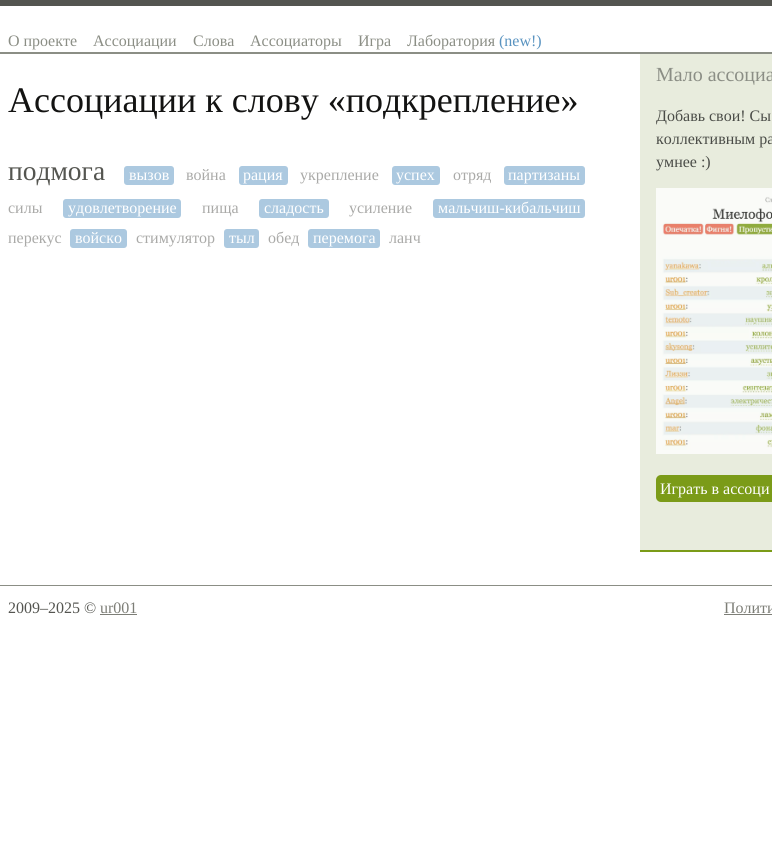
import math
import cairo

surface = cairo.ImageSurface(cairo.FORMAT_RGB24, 772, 860)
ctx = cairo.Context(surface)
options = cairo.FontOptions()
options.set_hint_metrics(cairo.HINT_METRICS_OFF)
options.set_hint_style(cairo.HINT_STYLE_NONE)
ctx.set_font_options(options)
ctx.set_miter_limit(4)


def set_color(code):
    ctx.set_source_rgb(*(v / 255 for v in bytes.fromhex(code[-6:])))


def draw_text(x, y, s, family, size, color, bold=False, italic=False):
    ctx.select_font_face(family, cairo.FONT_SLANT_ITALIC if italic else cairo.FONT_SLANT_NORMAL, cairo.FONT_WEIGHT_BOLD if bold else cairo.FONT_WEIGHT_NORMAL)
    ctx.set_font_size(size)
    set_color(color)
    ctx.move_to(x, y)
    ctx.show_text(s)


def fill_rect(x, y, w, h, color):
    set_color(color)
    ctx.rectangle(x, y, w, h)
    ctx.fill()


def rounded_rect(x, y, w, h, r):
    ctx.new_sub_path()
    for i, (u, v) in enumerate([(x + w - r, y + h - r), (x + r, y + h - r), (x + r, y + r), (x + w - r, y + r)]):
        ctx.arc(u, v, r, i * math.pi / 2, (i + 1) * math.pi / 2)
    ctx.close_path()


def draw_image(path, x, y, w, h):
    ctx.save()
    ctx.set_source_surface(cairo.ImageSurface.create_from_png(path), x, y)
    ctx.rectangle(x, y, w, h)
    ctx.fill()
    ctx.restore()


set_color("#ffffff")
ctx.paint()
fill_rect(0, 0, 772, 6, "#545550")
fill_rect(0, 52, 772, 2, "#8b8e85")
draw_text(8, 46, "О проекте", "Liberation Serif", 16, "#8b8e85")
draw_text(93, 46, "Ассоциации", "Liberation Serif", 16, "#8b8e85")
draw_text(193, 46, "Слова", "Liberation Serif", 16, "#8b8e85")
draw_text(250, 46, "Ассоциаторы", "Liberation Serif", 16, "#8b8e85")
draw_text(358, 46, "Игра", "Liberation Serif", 16, "#8b8e85")
draw_text(407, 46, "Лаборатория", "Liberation Serif", 16, "#8b8e85")
draw_text(499, 46, "(new!)", "Liberation Serif", 16, "#5993c0")
draw_text(8, 112, "Ассоциации к слову «подкрепление»", "Liberation Serif", 36, "#131312")
draw_text(8, 180, "подмога", "Liberation Serif", 27.5, "#545550")
set_color("#acc9e0")
rounded_rect(124, 166, 50, 19, 3)
ctx.fill()
draw_text(129, 180, "вызов", "Liberation Serif", 16, "#ffffff")
draw_text(186, 180, "война", "Liberation Serif", 16, "#aaaaa8")
set_color("#acc9e0")
rounded_rect(239, 166, 49, 19, 3)
ctx.fill()
draw_text(243, 180, "рация", "Liberation Serif", 16, "#ffffff")
draw_text(300, 180, "укрепление", "Liberation Serif", 16, "#aaaaa8")
set_color("#acc9e0")
rounded_rect(392, 166, 48, 19, 3)
ctx.fill()
draw_text(396, 180, "успех", "Liberation Serif", 16, "#ffffff")
draw_text(453, 180, "отряд", "Liberation Serif", 16, "#aaaaa8")
set_color("#acc9e0")
rounded_rect(504, 166, 81, 19, 3)
ctx.fill()
draw_text(508, 180, "партизаны", "Liberation Serif", 16, "#ffffff")
draw_text(8, 213, "силы", "Liberation Serif", 16, "#aaaaa8")
set_color("#acc9e0")
rounded_rect(63, 199, 118, 19, 3)
ctx.fill()
draw_text(68, 213, "удовлетворение", "Liberation Serif", 16, "#ffffff")
draw_text(202, 213, "пища", "Liberation Serif", 16, "#aaaaa8")
set_color("#acc9e0")
rounded_rect(259, 199, 70, 19, 3)
ctx.fill()
draw_text(264, 213, "сладость", "Liberation Serif", 16, "#ffffff")
draw_text(349, 213, "усиление", "Liberation Serif", 16, "#aaaaa8")
set_color("#acc9e0")
rounded_rect(433, 199, 152, 19, 3)
ctx.fill()
draw_text(438, 213, "мальчиш-кибальчиш", "Liberation Serif", 16, "#ffffff")
draw_text(8, 243, "перекус", "Liberation Serif", 16, "#aaaaa8")
set_color("#acc9e0")
rounded_rect(70, 229, 57, 19, 3)
ctx.fill()
draw_text(75, 243, "войско", "Liberation Serif", 16, "#ffffff")
draw_text(136, 243, "стимулятор", "Liberation Serif", 16, "#aaaaa8")
set_color("#acc9e0")
rounded_rect(224, 229, 35, 19, 3)
ctx.fill()
draw_text(229, 243, "тыл", "Liberation Serif", 16, "#ffffff")
draw_text(268, 243, "обед", "Liberation Serif", 16, "#aaaaa8")
set_color("#acc9e0")
rounded_rect(308, 229, 72, 19, 3)
ctx.fill()
draw_text(313, 243, "перемога", "Liberation Serif", 16, "#ffffff")
draw_text(389, 243, "ланч", "Liberation Serif", 16, "#aaaaa8")
fill_rect(640, 54, 132, 496, "#e8ecdd")
fill_rect(640, 550, 132, 2, "#7b9b18")
draw_text(656, 81, "Мало ассоциа", "Liberation Serif", 20, "#8b8e85")
draw_text(656, 121, "Добавь свои! Сы", "Liberation Serif", 16, "#4a4c47")
draw_text(656, 144, "коллективным ра", "Liberation Serif", 16, "#4a4c47")
draw_text(656, 167, "умнее :)", "Liberation Serif", 16, "#4a4c47")
draw_image("assets/img1.png", 656, 188, 116, 266)
set_color("#7b9b18")
rounded_rect(656, 475, 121, 27, 5)
ctx.fill()
draw_text(660, 494, "Играть в ассоци", "Liberation Serif", 16, "#ffffff")
fill_rect(0, 585, 772, 1, "#8b8e85")
draw_text(8, 613, "2009–2025 ©", "Liberation Serif", 16, "#545550")
draw_text(100, 613, "ur001", "Liberation Serif", 16, "#7d7e77")
fill_rect(100, 614, 37, 1, "#7d7e77")
draw_text(724, 613, "Полити", "Liberation Serif", 16, "#7d7e77")
fill_rect(724, 614, 48, 1, "#7d7e77")
surface.write_to_png("output.png")
